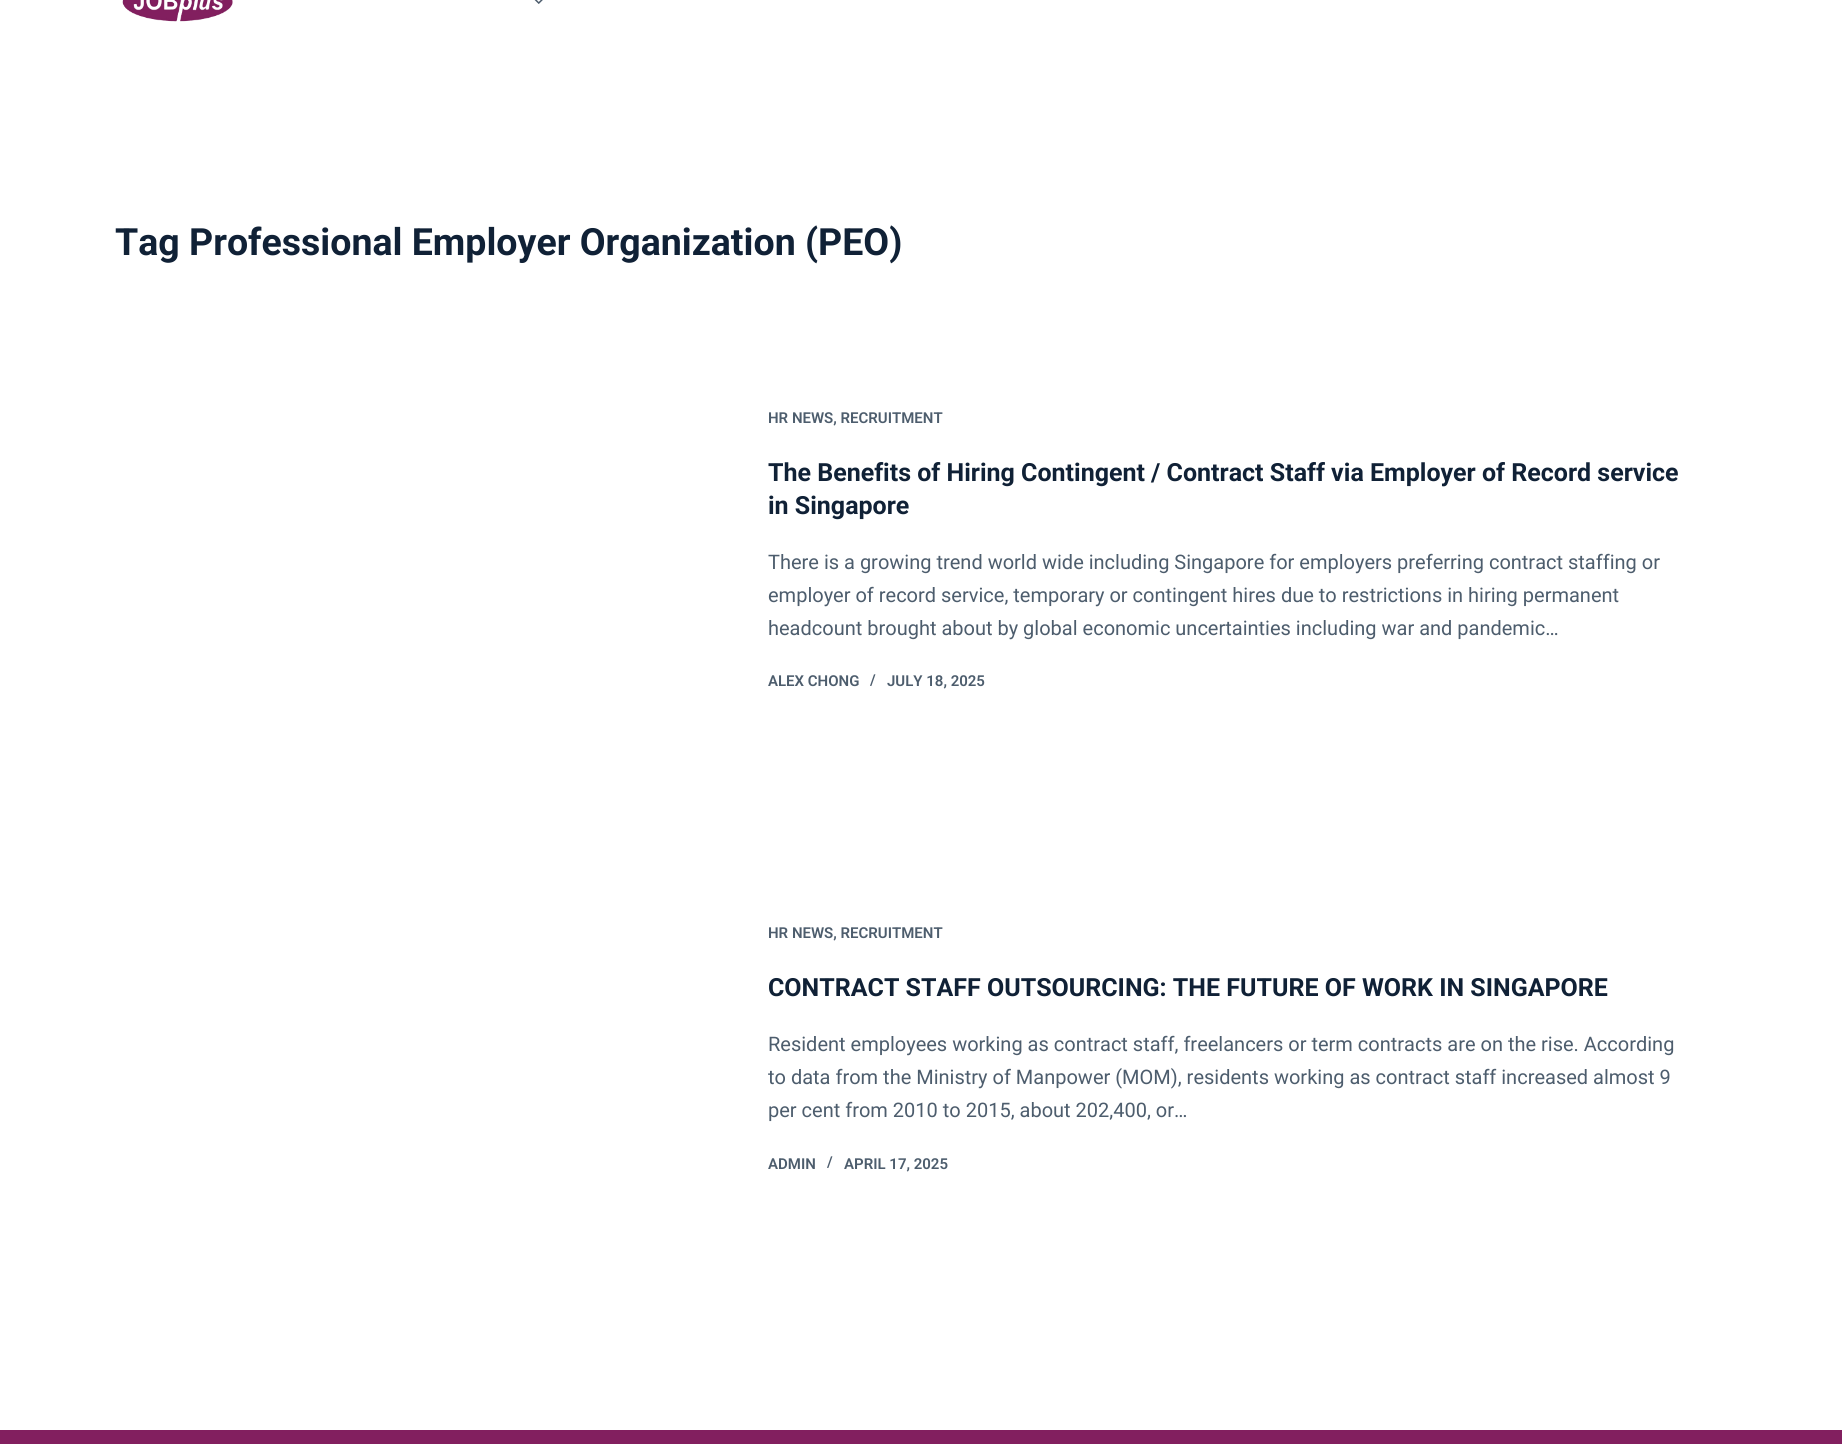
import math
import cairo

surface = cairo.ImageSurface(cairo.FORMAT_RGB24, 1842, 1444)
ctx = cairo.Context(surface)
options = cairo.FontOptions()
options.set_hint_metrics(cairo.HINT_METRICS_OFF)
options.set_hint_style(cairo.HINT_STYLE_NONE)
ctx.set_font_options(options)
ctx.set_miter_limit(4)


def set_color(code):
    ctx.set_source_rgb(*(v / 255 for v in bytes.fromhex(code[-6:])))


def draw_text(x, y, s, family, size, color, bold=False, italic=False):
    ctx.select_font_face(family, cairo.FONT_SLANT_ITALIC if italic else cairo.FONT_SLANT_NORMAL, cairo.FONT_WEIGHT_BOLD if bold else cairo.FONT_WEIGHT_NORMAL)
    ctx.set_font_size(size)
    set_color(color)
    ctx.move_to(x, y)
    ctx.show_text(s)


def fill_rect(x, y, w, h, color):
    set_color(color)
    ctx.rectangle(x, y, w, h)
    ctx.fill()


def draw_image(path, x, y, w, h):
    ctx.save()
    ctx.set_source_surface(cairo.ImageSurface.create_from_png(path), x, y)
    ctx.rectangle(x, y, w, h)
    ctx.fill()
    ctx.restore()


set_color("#ffffff")
ctx.paint()
draw_image("assets/img1.png", 122, 0, 111, 22)
draw_image("assets/img2.png", 534, 0, 9, 4)
draw_text(115, 255, "Tag Professional Employer Organization (PEO)", "Roboto", 37.5, "#102136", bold=True)
draw_text(768, 423, "HR NEWS, RECRUITMENT", "Roboto SemiBold", 15, "#4d5d6d")
draw_text(768, 481, "The Benefits of Hiring Contingent / Contract Staff via Employer of Record service", "Roboto", 25, "#102136", bold=True)
draw_text(768, 514, "in Singapore", "Roboto", 25, "#102136", bold=True)
draw_text(768, 569, "There is a growing trend world wide including Singapore for employers preferring contract staffing or", "Roboto", 20, "#4d5d6d")
draw_text(768, 602, "employer of record service, temporary or contingent hires due to restrictions in hiring permanent", "Roboto", 20, "#4d5d6d")
draw_text(768, 635, "headcount brought about by global economic uncertainties including war and pandemic…", "Roboto", 20, "#4d5d6d")
draw_text(768, 686, "ALEX CHONG", "Roboto SemiBold", 15, "#4d5d6d")
draw_text(870, 685, "/", "Roboto SemiBold", 15, "#4d5d6d")
draw_text(887, 686, "JULY 18, 2025", "Roboto SemiBold", 15, "#4d5d6d")
draw_text(768, 938, "HR NEWS, RECRUITMENT", "Roboto SemiBold", 15, "#4d5d6d")
draw_text(768, 996, "CONTRACT STAFF OUTSOURCING: THE FUTURE OF WORK IN SINGAPORE", "Roboto", 25, "#102136", bold=True)
draw_text(768, 1051, "Resident employees working as contract staff, freelancers or term contracts are on the rise. According", "Roboto", 20, "#4d5d6d")
draw_text(768, 1084, "to data from the Ministry of Manpower (MOM), residents working as contract staff increased almost 9", "Roboto", 20, "#4d5d6d")
draw_text(768, 1117, "per cent from 2010 to 2015, about 202,400, or…", "Roboto", 20, "#4d5d6d")
draw_text(768, 1169, "ADMIN", "Roboto SemiBold", 15, "#4d5d6d")
draw_text(827, 1167, "/", "Roboto SemiBold", 15, "#4d5d6d")
draw_text(844, 1169, "APRIL 17, 2025", "Roboto SemiBold", 15, "#4d5d6d")
fill_rect(0, 1430, 1842, 14, "#821f5f")
surface.write_to_png("output.png")
